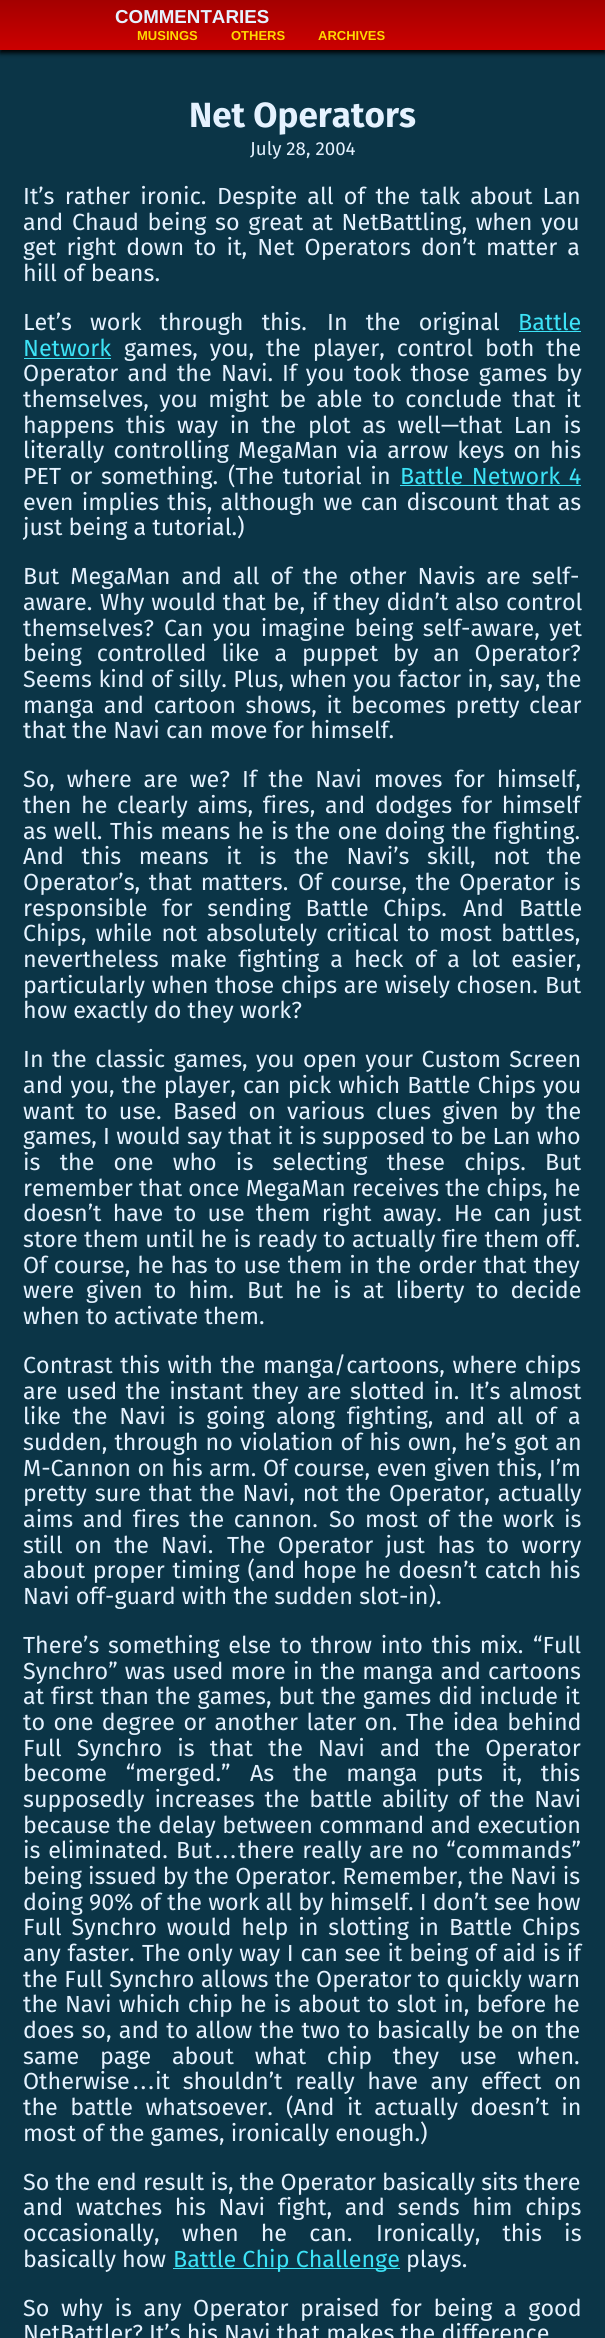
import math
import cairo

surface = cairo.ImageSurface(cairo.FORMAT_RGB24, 605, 2338)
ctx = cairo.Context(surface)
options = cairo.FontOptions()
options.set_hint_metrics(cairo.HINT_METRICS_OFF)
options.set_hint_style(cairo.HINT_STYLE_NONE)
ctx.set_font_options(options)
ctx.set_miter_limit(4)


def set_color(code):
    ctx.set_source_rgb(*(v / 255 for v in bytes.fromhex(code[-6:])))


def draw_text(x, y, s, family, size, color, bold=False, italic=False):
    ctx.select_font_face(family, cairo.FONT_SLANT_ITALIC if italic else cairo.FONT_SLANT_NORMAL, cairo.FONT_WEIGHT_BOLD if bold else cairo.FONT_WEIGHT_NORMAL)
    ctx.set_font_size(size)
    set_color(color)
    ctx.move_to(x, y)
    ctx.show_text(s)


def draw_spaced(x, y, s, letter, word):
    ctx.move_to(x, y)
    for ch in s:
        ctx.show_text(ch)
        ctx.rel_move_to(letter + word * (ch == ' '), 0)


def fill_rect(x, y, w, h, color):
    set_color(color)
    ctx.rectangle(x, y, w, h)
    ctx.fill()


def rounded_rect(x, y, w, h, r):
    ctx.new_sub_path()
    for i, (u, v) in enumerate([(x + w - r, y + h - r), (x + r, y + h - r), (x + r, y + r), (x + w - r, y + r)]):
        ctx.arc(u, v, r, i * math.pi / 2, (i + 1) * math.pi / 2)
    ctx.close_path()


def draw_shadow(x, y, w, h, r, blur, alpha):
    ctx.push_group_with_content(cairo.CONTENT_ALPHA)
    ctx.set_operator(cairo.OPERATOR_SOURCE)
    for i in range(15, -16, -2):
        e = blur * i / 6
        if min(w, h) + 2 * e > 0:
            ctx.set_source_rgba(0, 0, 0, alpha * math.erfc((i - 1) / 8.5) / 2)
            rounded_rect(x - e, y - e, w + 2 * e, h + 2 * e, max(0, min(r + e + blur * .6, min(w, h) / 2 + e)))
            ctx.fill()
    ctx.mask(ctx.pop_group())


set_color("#0b3547")
ctx.paint()
set_color("#000000")
draw_shadow(0, 3, 605, 50, 0, 2.5, 1)
gradient = cairo.LinearGradient(303, 0, 303, 50)
gradient.add_color_stop_rgba(0, 0.643, 0, 0, 1)
gradient.add_color_stop_rgba(1, 0.8, 0, 0, 1)
ctx.set_source(gradient)
ctx.rectangle(0, 0, 605, 50)
ctx.fill()
draw_text(115, 23, "COMMENTARIES", "Liberation Sans", 18.75, "#e5f2ff", bold=True)
draw_text(137, 40, "MUSINGS", "Liberation Sans", 13, "#ffd801", bold=True)
draw_text(231, 40, "OTHERS", "Liberation Sans", 13, "#ffd801", bold=True)
draw_text(318, 40, "ARCHIVES", "Liberation Sans", 13, "#ffd801", bold=True)
draw_text(189, 127, "Net Operators", "Fira Sans", 35, "#e5f2ff", bold=True)
draw_text(250, 155, "July 28, 2004", "Fira Sans", 18.75, "#e5f2ff")
ctx.set_font_size(23.3)
draw_spaced(23, 204, "It’s rather ironic.", 0, 4)
draw_spaced(217, 204, "Despite all of the talk about Lan", 0, 4)
draw_spaced(23, 230, "and Chaud being so great at NetBattling, when you", 0, 2.5)
draw_spaced(23, 255, "get right down to it, Net Operators don’t matter a", 0, 4)
draw_text(23, 281, "hill of beans.", "Fira Sans", 23.3, "#e5f2ff")
draw_spaced(23, 330, "Let’s work through this.", 0, 12)
draw_spaced(327, 330, "In the original", 0, 12)
draw_text(518, 330, "Battle", "Fira Sans", 23.3, "#3de3f7")
fill_rect(519, 331, 62, 1, "#3de3f7")
draw_text(23, 356, "Network", "Fira Sans", 23.3, "#3de3f7")
fill_rect(24, 358, 87, 1, "#3de3f7")
set_color("#e5f2ff")
draw_spaced(124, 356, "games, you, the player, control both the", 0, 5.75)
draw_spaced(23, 381, "Operator and the Navi.", 0, 3)
draw_spaced(282, 381, "If you took those games by", 0, 3)
draw_spaced(23, 407, "themselves, you might be able to conclude that it", 0, 4.25)
draw_spaced(23, 433, "happens this way in the plot as well—that Lan is", 0, 5.5)
draw_spaced(23, 458, "literally controlling MegaMan via arrow keys on his", 0, 3)
draw_spaced(23, 484, "PET or something.", 0, 2.5)
draw_spaced(228, 484, "(The tutorial in", 0, 2.5)
set_color("#3de3f7")
draw_spaced(400, 484, "Battle Network 4", 0, 2.5)
fill_rect(400, 485, 181, 1, "#3de3f7")
set_color("#e5f2ff")
draw_spaced(23, 510, "even implies this, although we can discount that as", 0, 2)
draw_text(23, 535, "just being a tutorial.)", "Fira Sans", 23.3, "#e5f2ff")
draw_spaced(23, 584, "But MegaMan and all of the other Navis are self-", 0, 5)
draw_text(23, 610, "aware.", "Fira Sans", 23.3, "#e5f2ff")
draw_spaced(100, 610, "Why would that be, if they didn’t also control", 0, 0.75)
draw_text(23, 636, "themselves?", "Fira Sans", 23.3, "#e5f2ff")
draw_spaced(164, 636, "Can you imagine being self-aware, yet", 0, 3.25)
draw_spaced(23, 661, "being controlled like a puppet by an Operator?", 0, 8.75)
draw_spaced(23, 687, "Seems kind of silly. Plus, when you factor in, say, the", 0, 0.25)
draw_spaced(23, 713, "manga and cartoon shows, it becomes pretty clear", 0, 3.5)
draw_text(23, 738, "that the Navi can move for himself.", "Fira Sans", 23.3, "#e5f2ff")
draw_spaced(23, 787, "So, where are we?", 0, 5.75)
draw_spaced(242, 787, "If the Navi moves for himself,", 0, 5.75)
draw_spaced(23, 813, "then he clearly aims, fires, and dodges for himself", 0, 3.5)
draw_spaced(23, 839, "as well.", 0, 1)
draw_spaced(110, 839, "This means he is the one doing the fighting.", 0, 1)
draw_spaced(23, 864, "And this means it is the Navi’s skill, not the", 0, 11.5)
draw_spaced(23, 890, "Operator’s, that matters.", 0, 2.5)
draw_spaced(298, 890, "Of course, the Operator is", 0, 2.5)
draw_spaced(23, 916, "responsible for sending Battle Chips.", 0, 8.5)
draw_spaced(463, 916, "And Battle", 0, 9)
draw_spaced(23, 941, "Chips, while not absolutely critical to most battles,", 0, 3)
draw_spaced(23, 967, "nevertheless make fighting a heck of a lot easier,", 0, 5)
draw_spaced(23, 993, "particularly when those chips are wisely chosen.", 0, 0.5)
draw_text(545, 993, "But", "Fira Sans", 23.3, "#e5f2ff")
draw_text(23, 1018, "how exactly do they work?", "Fira Sans", 23.3, "#e5f2ff")
draw_spaced(23, 1067, "In the classic games, you open your Custom Screen", 0, 2.25)
draw_spaced(23, 1093, "and you, the player, can pick which Battle Chips you", 0, 1)
draw_spaced(23, 1119, "want to use.", 0, 5)
draw_spaced(173, 1119, "Based on various clues given by the", 0, 5)
draw_text(23, 1144, "games, I would say that it is supposed to be Lan who", "Fira Sans", 23.3, "#e5f2ff")
draw_spaced(23, 1170, "is the one who is selecting these chips.", 0, 13)
draw_text(545, 1170, "But", "Fira Sans", 23.3, "#e5f2ff")
draw_text(23, 1196, "remember that once MegaMan receives the chips, he", "Fira Sans", 23.3, "#e5f2ff")
draw_spaced(23, 1221, "doesn’t have to use them right away.", 0, 5)
draw_spaced(454, 1221, "He can just", 0, 5)
draw_spaced(23, 1247, "store them until he is ready to actually fire them off.", 0, 0.25)
draw_spaced(23, 1273, "Of course, he has to use them in the order that they", 0, 0.75)
draw_spaced(23, 1298, "were given to him.", 0, 5.75)
draw_spaced(247, 1298, "But he is at liberty to decide", 0, 5.75)
draw_text(23, 1324, "when to activate them.", "Fira Sans", 23.3, "#e5f2ff")
draw_spaced(23, 1373, "Contrast this with the manga/cartoons, where chips", 0, 1.5)
draw_spaced(23, 1399, "are used the instant they are slotted in.", 0, 2.5)
draw_spaced(469, 1399, "It’s almost", 0, 2.5)
draw_spaced(23, 1424, "like the Navi is going along fighting, and all of a", 0, 5.5)
draw_spaced(23, 1450, "sudden, through no violation of his own, he’s got an", 0, 1)
draw_spaced(23, 1476, "M-Cannon on his arm.", 0, 0.5)
draw_spaced(263, 1476, "Of course, even given this, I’m", 0, 0.5)
draw_spaced(23, 1501, "pretty sure that the Navi, not the Operator, actually", 0, 1.75)
draw_spaced(23, 1527, "aims and fires the cannon.", 0, 3.5)
draw_spaced(329, 1527, "So most of the work is", 0, 3.5)
draw_spaced(23, 1553, "still on the Navi.", 0, 6)
draw_spaced(227, 1553, "The Operator just has to worry", 0, 6.25)
draw_spaced(23, 1578, "about proper timing (and hope he doesn’t catch his", 0, 1.5)
draw_text(23, 1604, "Navi off-guard with the sudden slot-in).", "Fira Sans", 23.3, "#e5f2ff")
draw_spaced(23, 1653, "There’s something else to throw into this mix.", 0, 2.5)
draw_text(533, 1653, "“Full", "Fira Sans", 23.3, "#e5f2ff")
draw_spaced(23, 1679, "Synchro” was used more in the manga and cartoons", 0, 1)
draw_spaced(23, 1704, "at first than the games, but the games did include it", 0, 0.75)
draw_spaced(23, 1730, "to one degree or another later on.", 0, 2.25)
draw_spaced(406, 1730, "The idea behind", 0, 2.25)
draw_spaced(23, 1756, "Full Synchro is that the Navi and the Operator", 0, 9)
draw_spaced(23, 1781, "become “merged.”", 0, 12.5)
draw_spaced(250, 1781, "As the manga puts it, this", 0, 12.5)
draw_spaced(23, 1807, "supposedly increases the battle ability of the Navi", 0, 3.75)
draw_spaced(23, 1833, "because the delay between command and execution", 0, 0.25)
draw_spaced(23, 1858, "is eliminated.", 0, 1.5)
draw_text(176, 1858, "But", "Fira Sans", 23.3, "#e5f2ff")
draw_spaced(215, 1858, "...", 2, 0)
draw_spaced(238, 1858, "there really are no “commands”", 0, 1.5)
draw_text(23, 1884, "being issued by the Operator. Remember, the Navi is", "Fira Sans", 23.3, "#e5f2ff")
draw_text(23, 1910, "doing 90% of the work all by himself. I don’t see how", "Fira Sans", 23.3, "#e5f2ff")
draw_spaced(23, 1935, "Full Synchro would help in slotting in Battle Chips", 0, 3.75)
draw_spaced(23, 1961, "any faster.", 0, 0.5)
draw_spaced(142, 1961, "The only way I can see it being of aid is if", 0, 0.5)
draw_spaced(23, 1987, "the Full Synchro allows the Operator to quickly warn", 0, 0.25)
draw_spaced(23, 2012, "the Navi which chip he is about to slot in, before he", 0, 1)
draw_spaced(23, 2038, "does so, and to allow the two to basically be on the", 0, 1.1)
draw_spaced(23, 2064, "same page about what chip they use when.", 0, 14.5)
draw_text(23, 2089, "Otherwise", "Fira Sans", 23.3, "#e5f2ff")
draw_spaced(133, 2089, "...", 2, 0)
draw_spaced(155, 2089, "it shouldn’t really have any effect on", 0, 6.5)
draw_spaced(23, 2115, "the battle whatsoever.", 0, 6.25)
draw_spaced(286, 2115, "(And it actually doesn’t in", 0, 6.25)
draw_text(23, 2141, "most of the games, ironically enough.)", "Fira Sans", 23.3, "#e5f2ff")
draw_text(23, 2190, "So the end result is, the Operator basically sits there", "Fira Sans", 23.3, "#e5f2ff")
draw_spaced(23, 2215, "and watches his Navi fight, and sends him chips", 0, 6.5)
draw_spaced(23, 2241, "occasionally, when he can.", 0, 16)
draw_spaced(376, 2241, "Ironically, this is", 0, 16)
draw_text(23, 2267, "basically how", "Fira Sans", 23.3, "#e5f2ff")
fill_rect(173, 2268, 227, 1, "#3de3f7")
draw_text(173, 2267, "Battle Chip Challenge", "Fira Sans", 23.3, "#3de3f7")
draw_text(406, 2267, "plays.", "Fira Sans", 23.3, "#e5f2ff")
draw_spaced(23, 2316, "So why is any Operator praised for being a good", 0, 5.5)
draw_text(23, 2341, "NetBattler? It’s his Navi that makes the difference", "Fira Sans", 23.3, "#e5f2ff")
surface.write_to_png("output.png")
